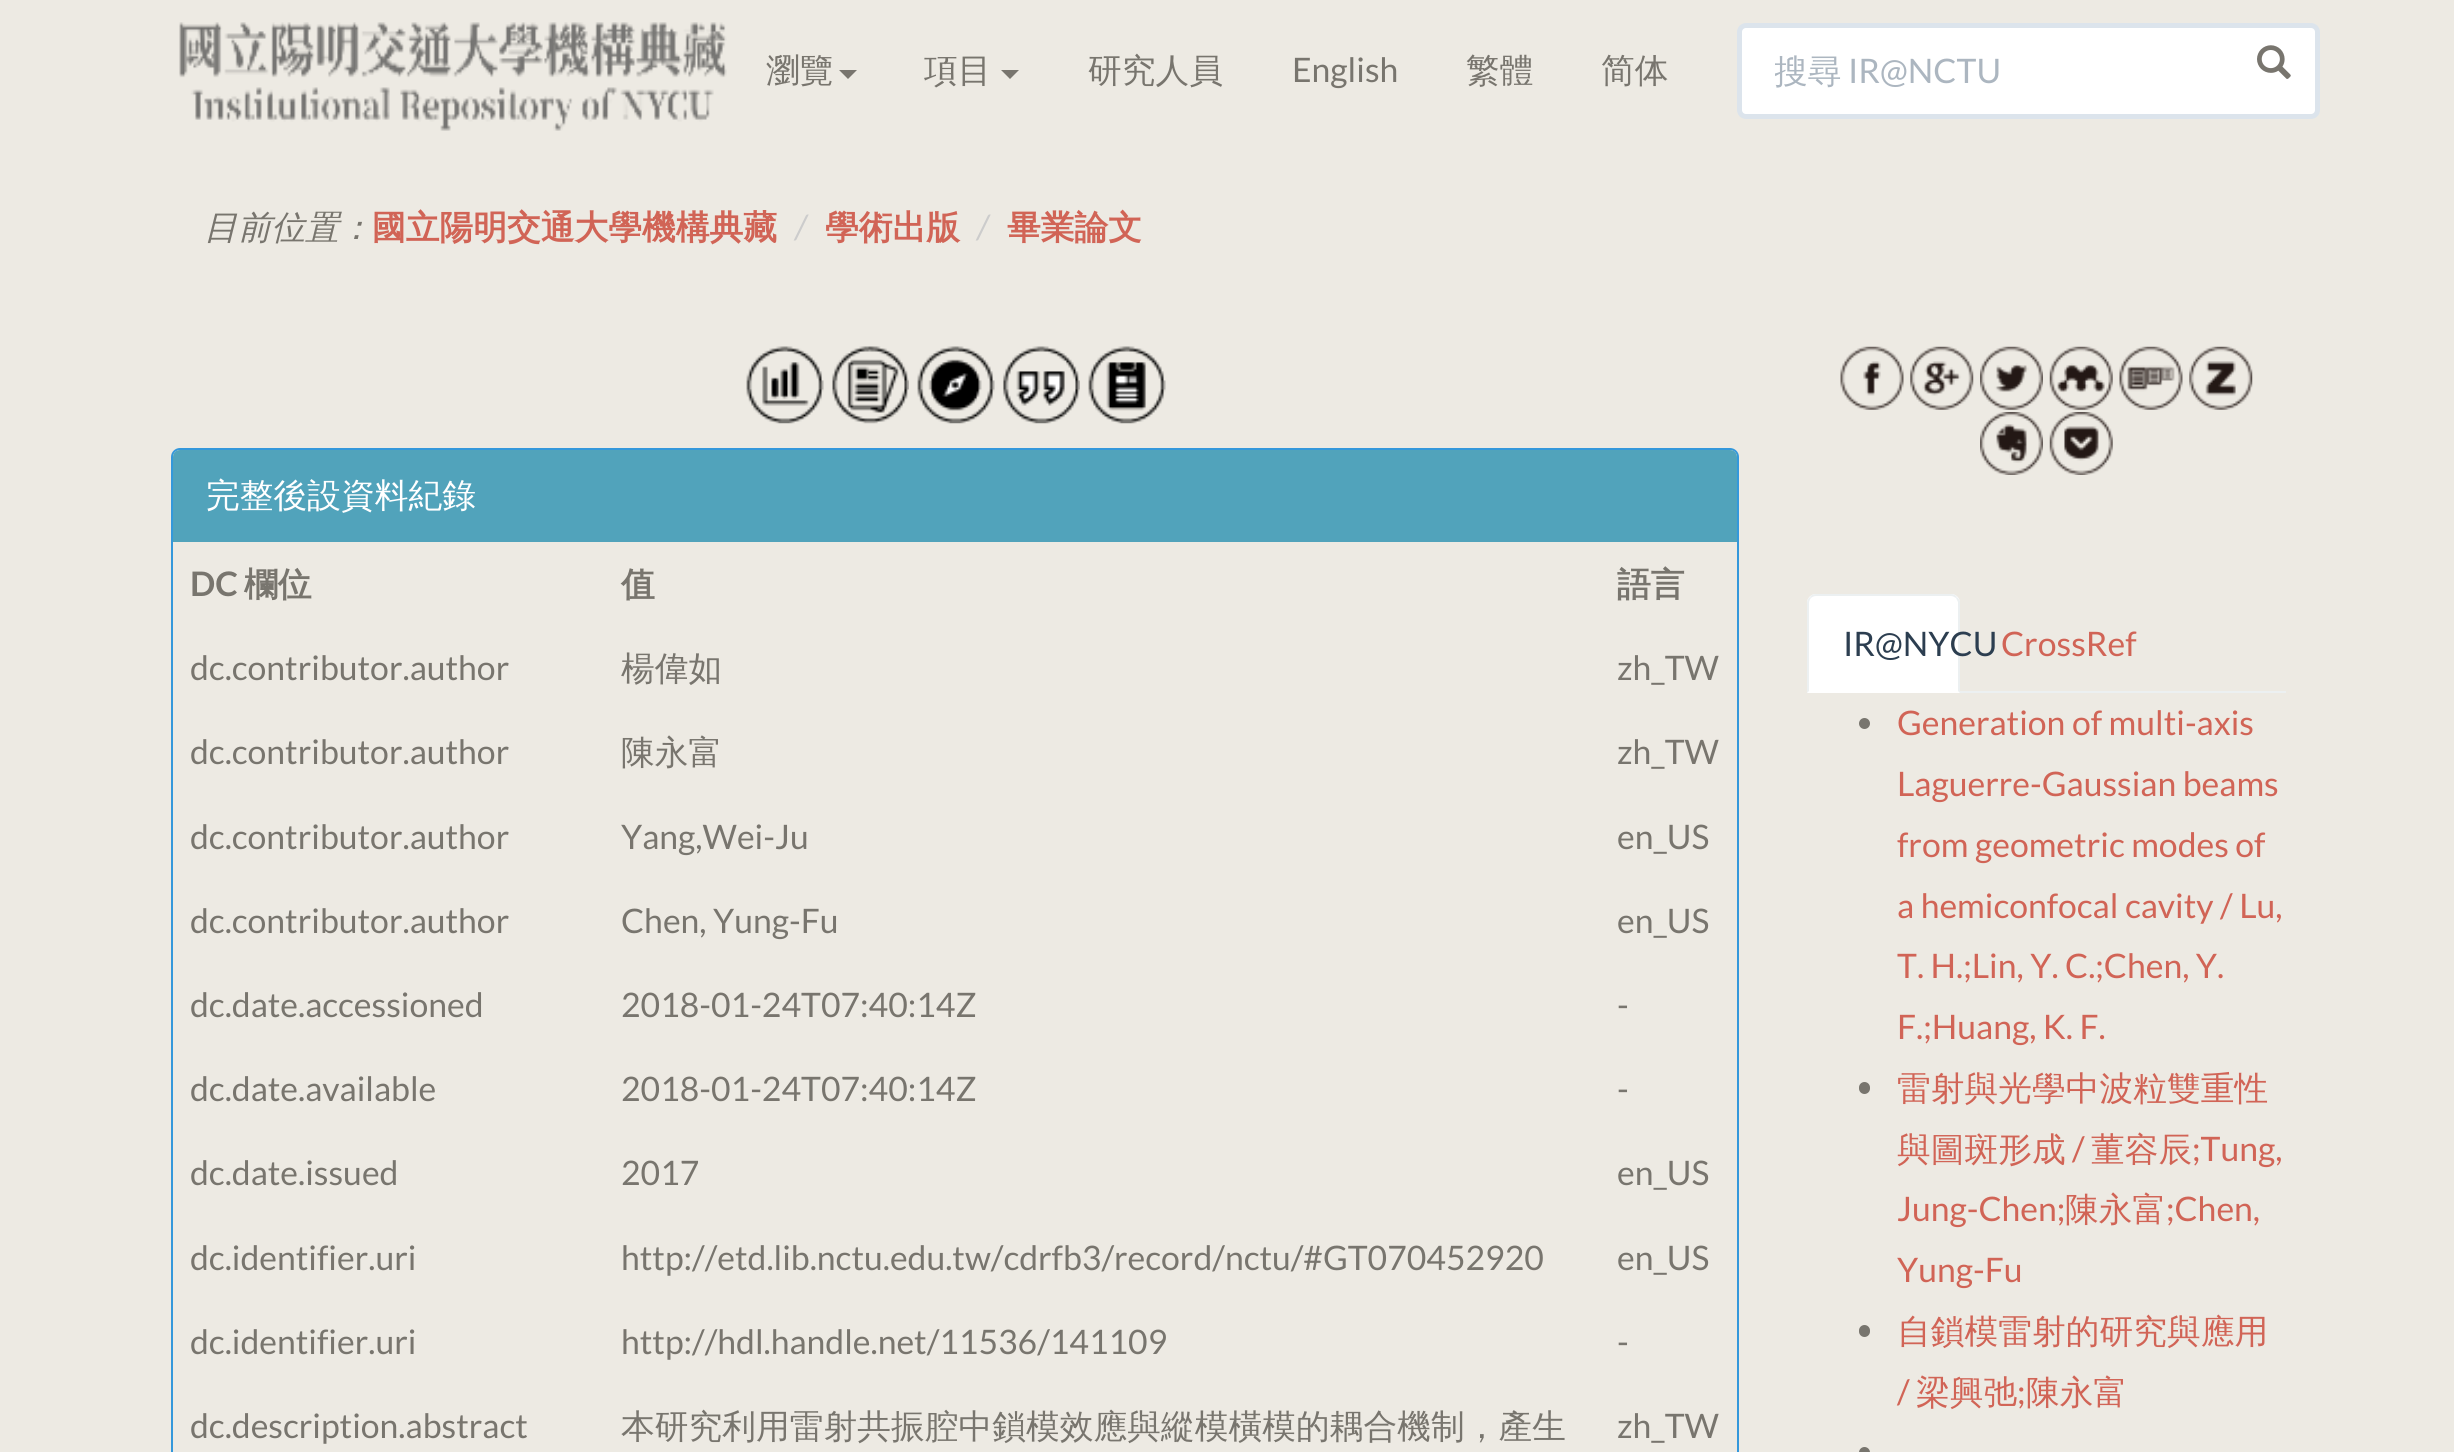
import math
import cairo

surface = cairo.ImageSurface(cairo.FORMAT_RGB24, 2454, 1452)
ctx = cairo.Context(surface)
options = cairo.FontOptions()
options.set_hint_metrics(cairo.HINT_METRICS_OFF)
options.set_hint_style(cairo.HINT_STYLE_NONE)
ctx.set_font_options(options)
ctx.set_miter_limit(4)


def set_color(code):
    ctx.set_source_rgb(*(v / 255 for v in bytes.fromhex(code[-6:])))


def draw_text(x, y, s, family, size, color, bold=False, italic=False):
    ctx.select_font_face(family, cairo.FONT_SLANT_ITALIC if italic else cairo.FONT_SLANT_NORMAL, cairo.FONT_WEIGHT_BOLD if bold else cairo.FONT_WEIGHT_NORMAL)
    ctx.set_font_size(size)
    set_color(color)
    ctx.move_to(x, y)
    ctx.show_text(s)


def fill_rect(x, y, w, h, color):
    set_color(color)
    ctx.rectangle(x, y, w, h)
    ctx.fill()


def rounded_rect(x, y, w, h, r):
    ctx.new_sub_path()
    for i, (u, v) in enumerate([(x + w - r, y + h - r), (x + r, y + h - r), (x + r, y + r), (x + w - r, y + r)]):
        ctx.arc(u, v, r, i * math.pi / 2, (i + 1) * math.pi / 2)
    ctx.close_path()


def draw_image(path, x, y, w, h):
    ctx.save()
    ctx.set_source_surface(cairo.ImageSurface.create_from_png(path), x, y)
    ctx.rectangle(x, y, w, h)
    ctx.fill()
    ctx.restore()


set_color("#edeae3")
ctx.paint()
draw_image("assets/img1.png", 179, 22, 548, 109)
draw_text(766, 82, "瀏覽", "WenQuanYi Zen Hei Medium", 33.75, "#78756e")
ctx.new_path()
ctx.move_to(839, 70)
ctx.line_to(857, 70)
ctx.line_to(848, 79)
ctx.close_path()
ctx.fill()
draw_text(924, 82, "項目", "WenQuanYi Zen Hei Medium", 33.75, "#78756e")
ctx.new_path()
ctx.move_to(1001, 70)
ctx.line_to(1019, 70)
ctx.line_to(1010, 79)
ctx.close_path()
ctx.fill()
draw_text(1088, 82, "研究人員", "WenQuanYi Zen Hei Medium", 33.75, "#78756e")
draw_text(1292, 82, "English", "Lato", 33.75, "#78756e")
draw_text(1466, 82, "繁體", "WenQuanYi Zen Hei Medium", 33.75, "#78756e")
draw_text(1601, 82, "简体", "WenQuanYi Zen Hei Medium", 33.75, "#78756e")
set_color("#ffffff")
rounded_rect(1739.5, 25.5, 578, 91, 6.5)
ctx.fill_preserve()
set_color("#dce4ec")
ctx.set_line_width(5)
ctx.stroke()
ctx.save()
ctx.rectangle(1775, 50, 473, 45)
ctx.clip()
draw_text(1774, 83, "搜尋", "WenQuanYi Zen Hei Medium", 33.75, "#acb6c0")
ctx.restore()
draw_text(1848, 83, "IR@NCTU", "Lato", 33.75, "#acb6c0")
draw_image("assets/img2.png", 2257, 45, 34, 34)
draw_text(204, 239, "目前位置：", "WenQuanYi Zen Hei Medium", 33.75, "#78756e", italic=True)
draw_text(372, 239, "國立陽明交通大學機構典藏", "WenQuanYi Zen Hei", 33.75, "#d16456", bold=True)
draw_text(795, 239, "/", "Lato", 33.75, "#cccccc", italic=True)
draw_text(825, 239, "學術出版", "WenQuanYi Zen Hei", 33.75, "#d16456", bold=True)
draw_text(977, 239, "/", "Lato", 33.75, "#cccccc", italic=True)
draw_text(1007, 239, "畢業論文", "WenQuanYi Zen Hei", 33.75, "#d16456", bold=True)
draw_image("assets/img3.png", 746, 346, 78, 78)
draw_image("assets/img4.png", 832, 346, 77, 78)
draw_image("assets/img5.png", 917, 346, 78, 78)
draw_image("assets/img6.png", 1003, 346, 77, 78)
draw_image("assets/img7.png", 1088, 346, 78, 78)
rounded_rect(172, 449, 1566, 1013, 8)
set_color("#3498db")
ctx.set_line_width(2)
ctx.stroke()
set_color("#51a3bb")
ctx.new_path()
ctx.move_to(180, 450)
ctx.line_to(1730, 450)
ctx.curve_to(1734, 450, 1737, 453, 1737, 457)
ctx.line_to(1737, 542)
ctx.line_to(173, 542)
ctx.line_to(173, 457)
ctx.curve_to(173, 453, 176, 450, 180, 450)
ctx.close_path()
ctx.fill()
draw_text(206, 507, "完整後設資料紀錄", "WenQuanYi Zen Hei Medium", 33.75, "#ffffff")
draw_text(190, 596, "DC", "Lato", 33.75, "#78756e", bold=True)
draw_text(244, 596, "欄位", "WenQuanYi Zen Hei", 33.75, "#78756e", bold=True)
draw_text(621, 596, "值", "WenQuanYi Zen Hei", 33.75, "#78756e", bold=True)
draw_text(1617, 596, "語言", "WenQuanYi Zen Hei", 33.75, "#78756e", bold=True)
draw_text(190, 680, "dc.contributor.author", "Lato", 33.75, "#78756e")
draw_text(621, 680, "楊偉如", "WenQuanYi Zen Hei Medium", 33.75, "#78756e")
draw_text(1617, 680, "zh_TW", "Lato", 33.75, "#78756e")
draw_text(190, 764, "dc.contributor.author", "Lato", 33.75, "#78756e")
draw_text(621, 764, "陳永富", "WenQuanYi Zen Hei Medium", 33.75, "#78756e")
draw_text(1617, 764, "zh_TW", "Lato", 33.75, "#78756e")
draw_text(190, 849, "dc.contributor.author", "Lato", 33.75, "#78756e")
draw_text(621, 849, "Yang,Wei-Ju", "Lato", 33.75, "#78756e")
draw_text(1617, 849, "en_US", "Lato", 33.75, "#78756e")
draw_text(190, 933, "dc.contributor.author", "Lato", 33.75, "#78756e")
draw_text(621, 933, "Chen, Yung-Fu", "Lato", 33.75, "#78756e")
draw_text(1617, 933, "en_US", "Lato", 33.75, "#78756e")
draw_text(190, 1017, "dc.date.accessioned", "Lato", 33.75, "#78756e")
draw_text(621, 1017, "2018-01-24T07:40:14Z", "Lato", 33.75, "#78756e")
draw_text(1617, 1017, "-", "Lato", 33.75, "#78756e")
draw_text(190, 1101, "dc.date.available", "Lato", 33.75, "#78756e")
draw_text(621, 1101, "2018-01-24T07:40:14Z", "Lato", 33.75, "#78756e")
draw_text(1617, 1101, "-", "Lato", 33.75, "#78756e")
draw_text(190, 1185, "dc.date.issued", "Lato", 33.75, "#78756e")
draw_text(621, 1185, "2017", "Lato", 33.75, "#78756e")
draw_text(1617, 1185, "en_US", "Lato", 33.75, "#78756e")
draw_text(190, 1270, "dc.identifier.uri", "Lato", 33.75, "#78756e")
draw_text(621, 1270, "http://etd.lib.nctu.edu.tw/cdrfb3/record/nctu/#GT070452920", "Lato", 33.75, "#78756e")
draw_text(1617, 1270, "en_US", "Lato", 33.75, "#78756e")
draw_text(190, 1354, "dc.identifier.uri", "Lato", 33.75, "#78756e")
draw_text(621, 1354, "http://hdl.handle.net/11536/141109", "Lato", 33.75, "#78756e")
draw_text(1617, 1354, "-", "Lato", 33.75, "#78756e")
draw_text(190, 1438, "dc.description.abstract", "Lato", 33.75, "#78756e")
draw_text(621, 1438, "本研究利用雷射共振腔中鎖模效應與縱模橫模的耦合機制，產生", "WenQuanYi Zen Hei Medium", 33.75, "#78756e")
draw_text(1617, 1438, "zh_TW", "Lato", 33.75, "#78756e")
draw_image("assets/img8.png", 1840, 346, 64, 64)
draw_image("assets/img9.png", 1910, 346, 64, 64)
draw_image("assets/img10.png", 1980, 346, 63, 64)
draw_image("assets/img11.png", 2049, 346, 64, 64)
draw_image("assets/img12.png", 2119, 346, 64, 64)
draw_image("assets/img13.png", 2189, 346, 64, 64)
draw_image("assets/img14.png", 1980, 412, 63, 63)
draw_image("assets/img15.png", 2049, 412, 64, 63)
fill_rect(1960, 691, 326, 2, "#ecf0f1")
set_color("#ffffff")
ctx.new_path()
ctx.move_to(1816, 594)
ctx.line_to(1951, 594)
ctx.curve_to(1956, 594, 1960, 598, 1960, 603)
ctx.line_to(1960, 693)
ctx.line_to(1807, 693)
ctx.line_to(1807, 603)
ctx.curve_to(1807, 598, 1811, 594, 1816, 594)
ctx.close_path()
ctx.fill()
set_color("#ecf0f1")
ctx.new_path()
ctx.move_to(1816, 594)
ctx.curve_to(1813, 594, 1811, 595, 1810, 597)
ctx.line_to(1811, 598)
ctx.curve_to(1812, 597, 1814, 596, 1816, 596)
ctx.line_to(1951, 596)
ctx.curve_to(1953, 596, 1954, 597, 1956, 598)
ctx.line_to(1957, 597)
ctx.curve_to(1956, 595, 1953, 594, 1951, 594)
ctx.close_path()
ctx.fill()
ctx.new_path()
ctx.move_to(1960, 601)
ctx.line_to(1960, 693)
ctx.line_to(1958, 691)
ctx.line_to(1958, 602)
ctx.line_to(1956, 598)
ctx.line_to(1957, 597)
ctx.curve_to(1958, 598, 1959, 599, 1960, 601)
ctx.close_path()
ctx.fill()
ctx.new_path()
ctx.move_to(1810, 597)
ctx.curve_to(1808, 598, 1807, 601, 1807, 603)
ctx.line_to(1807, 693)
ctx.line_to(1809, 691)
ctx.line_to(1809, 603)
ctx.curve_to(1809, 601, 1810, 599, 1811, 598)
ctx.close_path()
ctx.fill()
draw_text(1843, 656, "IR@NYCU", "Lato", 33.75, "#2c3e50")
draw_text(2001, 656, "CrossRef", "Lato", 33.75, "#d16456")
set_color("#78756e")
ctx.new_path()
ctx.arc(1864.5, 723.5, 5.5, 0, 2 * math.pi)
ctx.fill()
draw_text(1897, 735, "Generation of multi-axis", "Lato", 33.75, "#d16456")
draw_text(1897, 796, "Laguerre-Gaussian beams", "Lato", 33.75, "#d16456")
draw_text(1897, 857, "from geometric modes of", "Lato", 33.75, "#d16456")
draw_text(1897, 918, "a hemiconfocal cavity / Lu,", "Lato", 33.75, "#d16456")
draw_text(1897, 978, "T. H.;Lin, Y. C.;Chen, Y.", "Lato", 33.75, "#d16456")
draw_text(1897, 1039, "F.;Huang, K. F.", "Lato", 33.75, "#d16456")
set_color("#78756e")
rounded_rect(1859, 1082, 11, 12, 5.5)
ctx.fill()
draw_text(1897, 1100, "雷射與光學中波粒雙重性", "WenQuanYi Zen Hei Medium", 33.75, "#d16456")
draw_text(1897, 1161, "與圖斑形成", "WenQuanYi Zen Hei Medium", 33.75, "#d16456")
draw_text(2072, 1161, "/", "Lato", 33.75, "#d16456")
draw_text(2091, 1161, "董容辰", "WenQuanYi Zen Hei Medium", 33.75, "#d16456")
draw_text(2192, 1161, ";Tung,", "Lato", 33.75, "#d16456")
draw_text(1897, 1221, "Jung-Chen;", "Lato", 33.75, "#d16456")
draw_text(2065, 1221, "陳永富", "WenQuanYi Zen Hei Medium", 33.75, "#d16456")
draw_text(2166, 1221, ";Chen,", "Lato", 33.75, "#d16456")
draw_text(1897, 1282, "Yung-Fu", "Lato", 33.75, "#d16456")
set_color("#78756e")
rounded_rect(1859, 1325, 11, 12, 5.5)
ctx.fill()
draw_text(1897, 1343, "自鎖模雷射的研究與應用", "WenQuanYi Zen Hei Medium", 33.75, "#d16456")
draw_text(1897, 1404, "/", "Lato", 33.75, "#d16456")
draw_text(1916, 1404, "梁興弛", "WenQuanYi Zen Hei Medium", 33.75, "#d16456")
draw_text(2017, 1404, ";", "Lato", 33.75, "#d16456")
draw_text(2026, 1404, "陳永富", "WenQuanYi Zen Hei Medium", 33.75, "#d16456")
set_color("#78756e")
ctx.new_path()
ctx.arc(1864.5, 1452.5, 5.5, 0, 2 * math.pi)
ctx.fill()
surface.write_to_png("output.png")
